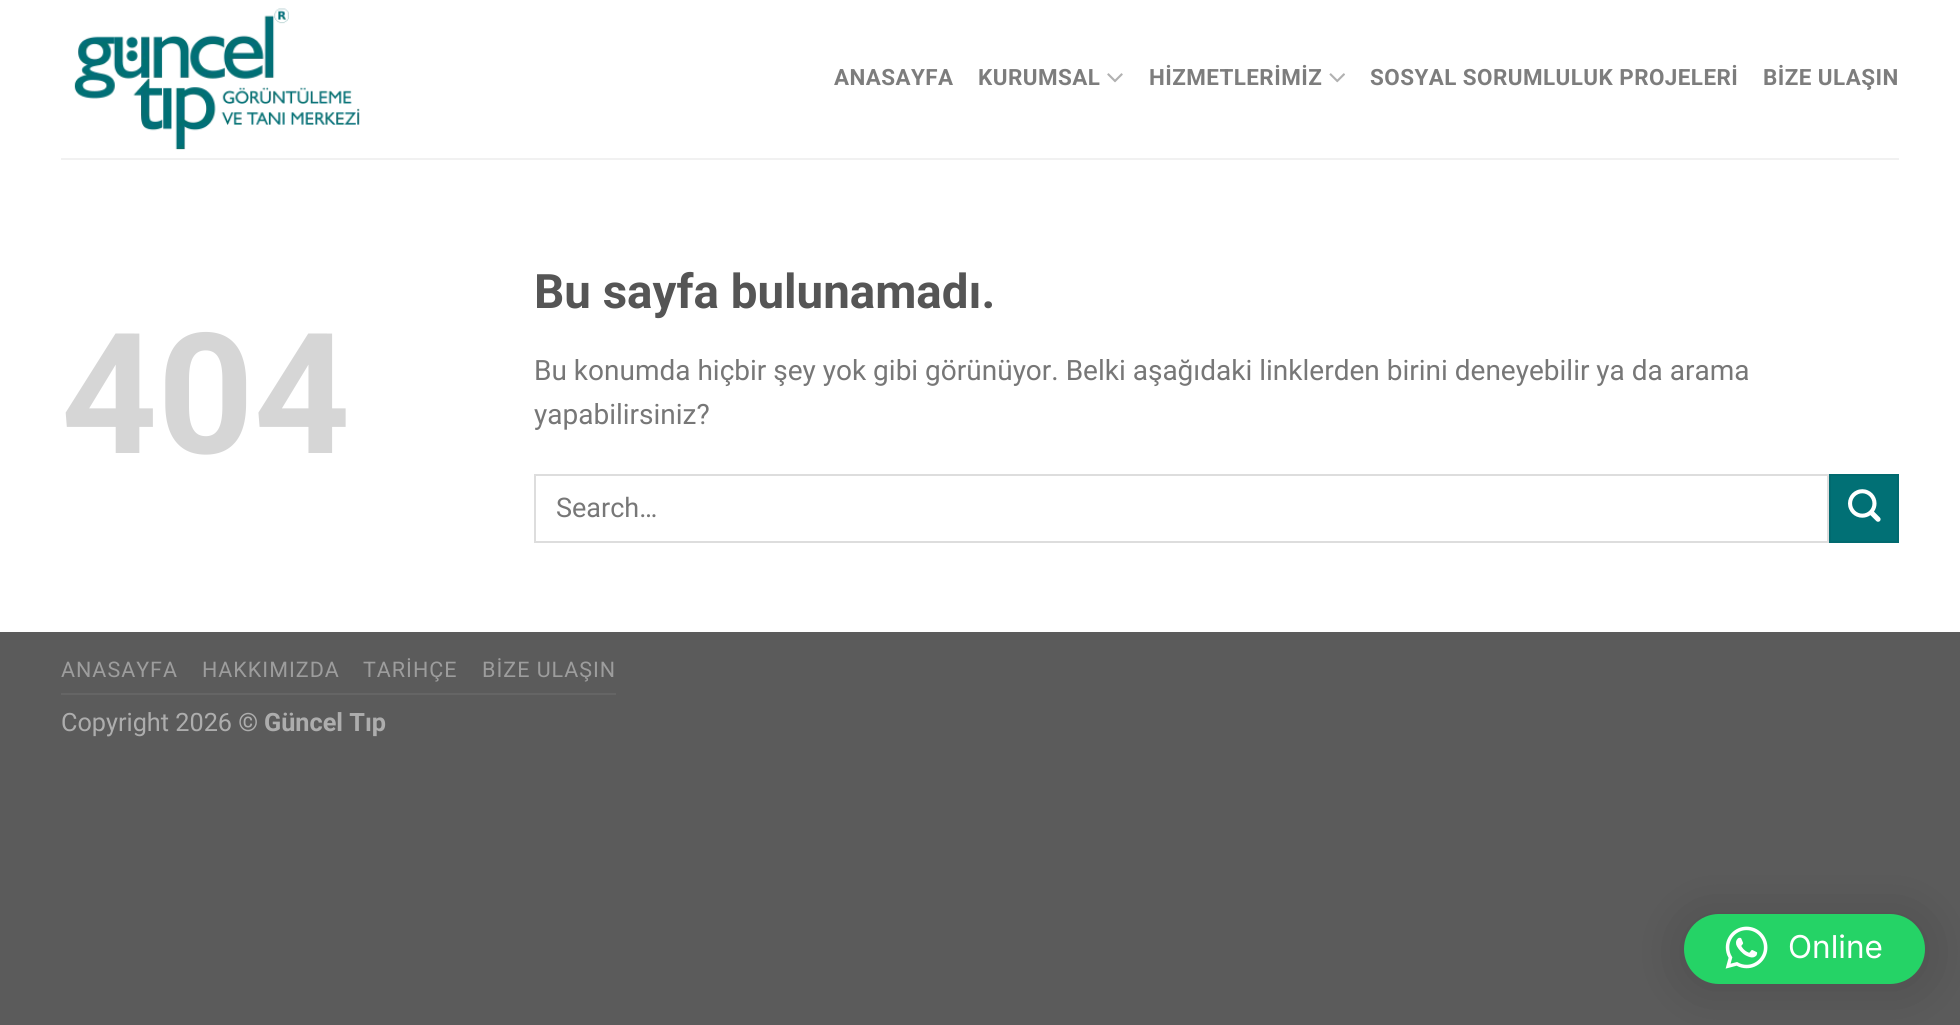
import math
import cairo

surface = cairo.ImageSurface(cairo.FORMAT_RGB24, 1960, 1025)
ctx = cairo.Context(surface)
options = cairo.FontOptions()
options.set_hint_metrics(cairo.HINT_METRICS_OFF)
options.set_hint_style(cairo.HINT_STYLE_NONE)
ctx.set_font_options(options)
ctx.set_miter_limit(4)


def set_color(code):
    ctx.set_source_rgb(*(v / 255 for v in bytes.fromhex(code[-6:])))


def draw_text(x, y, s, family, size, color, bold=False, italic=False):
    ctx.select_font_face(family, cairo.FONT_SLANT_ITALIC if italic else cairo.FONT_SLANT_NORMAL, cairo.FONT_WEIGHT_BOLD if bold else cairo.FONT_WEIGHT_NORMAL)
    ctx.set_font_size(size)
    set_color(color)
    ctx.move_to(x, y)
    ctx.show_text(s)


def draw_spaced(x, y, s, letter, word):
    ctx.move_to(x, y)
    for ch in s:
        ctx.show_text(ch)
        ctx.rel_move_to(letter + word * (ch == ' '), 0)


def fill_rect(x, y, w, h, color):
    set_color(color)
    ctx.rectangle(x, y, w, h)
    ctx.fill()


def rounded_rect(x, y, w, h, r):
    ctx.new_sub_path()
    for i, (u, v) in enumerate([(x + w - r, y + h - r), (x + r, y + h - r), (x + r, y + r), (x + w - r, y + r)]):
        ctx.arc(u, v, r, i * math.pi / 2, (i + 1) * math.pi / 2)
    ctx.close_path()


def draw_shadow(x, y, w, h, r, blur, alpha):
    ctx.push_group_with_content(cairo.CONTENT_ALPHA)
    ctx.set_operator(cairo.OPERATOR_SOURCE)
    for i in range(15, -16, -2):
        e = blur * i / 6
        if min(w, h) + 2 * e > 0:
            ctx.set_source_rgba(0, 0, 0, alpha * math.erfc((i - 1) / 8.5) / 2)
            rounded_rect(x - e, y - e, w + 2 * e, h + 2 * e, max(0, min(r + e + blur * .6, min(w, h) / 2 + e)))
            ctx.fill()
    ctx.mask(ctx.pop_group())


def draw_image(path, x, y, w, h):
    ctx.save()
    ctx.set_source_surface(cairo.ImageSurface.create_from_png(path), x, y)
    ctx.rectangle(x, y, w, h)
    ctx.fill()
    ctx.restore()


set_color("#5b5b5b")
ctx.paint()
fill_rect(0, 0, 1960, 632, "#ffffff")
draw_image("assets/img1.png", 74, 8, 286, 142)
ctx.select_font_face("Roboto", cairo.FONT_SLANT_NORMAL, cairo.FONT_WEIGHT_BOLD)
ctx.set_font_size(22.4)
set_color("#7d7d7d")
draw_spaced(834, 85, "ANASAYFA", 0.45, 0)
draw_spaced(978, 85, "KURUMSAL", 0.45, 0)
draw_image("assets/img2.png", 1107, 73, 16, 10)
draw_spaced(1149, 85, "HİZMETLERİMİZ", 0.45, 0)
draw_image("assets/img3.png", 1329, 73, 16, 10)
draw_spaced(1370, 85, "SOSYAL SORUMLULUK PROJELERİ", 0.45, 0)
draw_spaced(1763, 85, "BİZE ULAŞIN", 0.45, 0)
fill_rect(61, 158, 1838, 2, "#f1f1f1")
draw_text(61, 453, "404", "Roboto", 168, "#d6d6d6", bold=True)
draw_text(534, 308, "Bu sayfa bulunamadı.", "Roboto", 47.5, "#555555", bold=True)
draw_text(534, 380, "Bu konumda hiçbir şey yok gibi görünüyor. Belki aşağıdaki linklerden birini deneyebilir ya da arama", "Roboto", 28, "#777777")
draw_text(534, 424, "yapabilirsiniz?", "Roboto", 28, "#777777")
ctx.rectangle(535, 475, 1293, 67)
set_color("#dddddd")
ctx.stroke()
draw_text(556, 517, "Search…", "Roboto", 27, "#777777")
set_color("#017075")
ctx.rectangle(1830, 475, 68, 67)
ctx.fill_preserve()
set_color("#016a6f")
ctx.stroke()
draw_image("assets/img4.png", 1848, 489, 33, 33)
fill_rect(61, 693, 555, 2, "#656565")
ctx.set_font_size(21.5)
set_color("#9d9d9d")
draw_spaced(61, 677, "ANASAYFA", 1, 0)
draw_spaced(202, 677, "HAKKIMIZDA", 1, 0)
draw_spaced(363, 677, "TARİHÇE", 1, 0)
draw_spaced(482, 677, "BİZE ULAŞIN", 1, 0)
draw_text(61, 731, "Copyright 2026 ©", "Roboto", 25.25, "#adadad")
draw_text(264, 731, "Güncel Tıp", "Roboto", 25.25, "#adadad", bold=True)
set_color("#000000")
draw_shadow(1684, 917, 241, 70, 35, 28, 0.16)
set_color("#25d366")
rounded_rect(1684, 914, 241, 70, 35)
ctx.fill()
draw_image("assets/img5.png", 1725, 926, 43, 43)
draw_text(1788, 958, "Online", "Inter", 31.5, "#ffffff")
surface.write_to_png("output.png")
